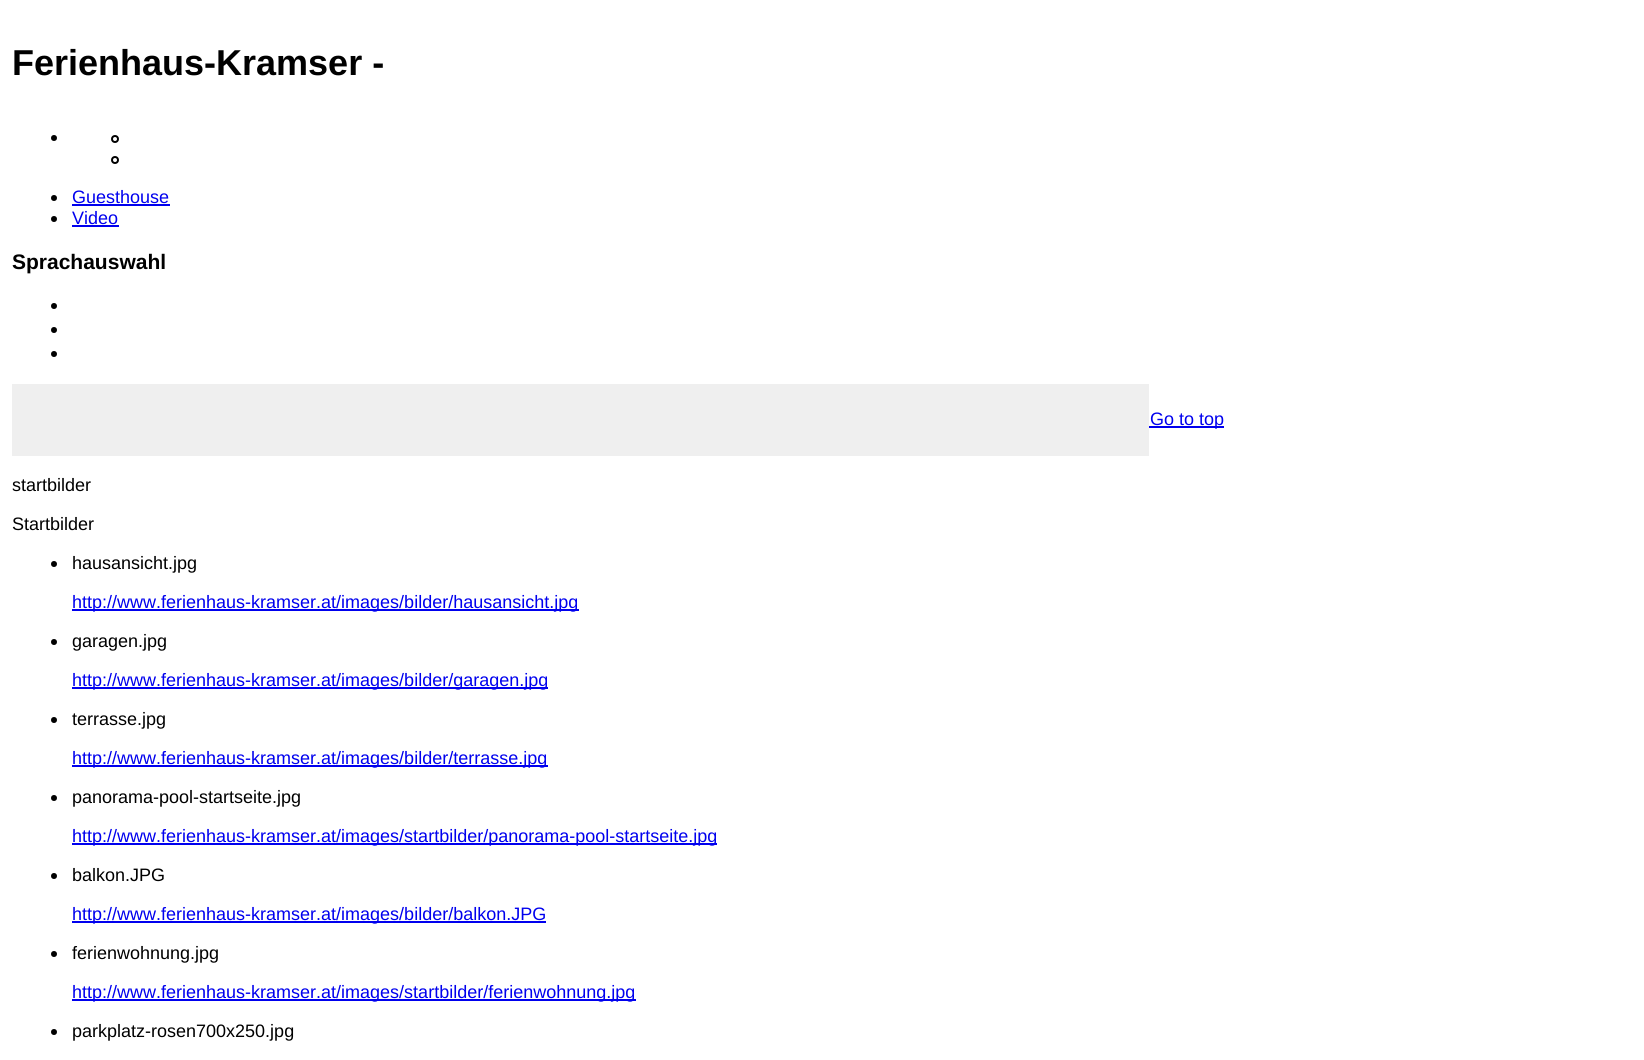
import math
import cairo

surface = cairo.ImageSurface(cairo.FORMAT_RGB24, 1644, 1060)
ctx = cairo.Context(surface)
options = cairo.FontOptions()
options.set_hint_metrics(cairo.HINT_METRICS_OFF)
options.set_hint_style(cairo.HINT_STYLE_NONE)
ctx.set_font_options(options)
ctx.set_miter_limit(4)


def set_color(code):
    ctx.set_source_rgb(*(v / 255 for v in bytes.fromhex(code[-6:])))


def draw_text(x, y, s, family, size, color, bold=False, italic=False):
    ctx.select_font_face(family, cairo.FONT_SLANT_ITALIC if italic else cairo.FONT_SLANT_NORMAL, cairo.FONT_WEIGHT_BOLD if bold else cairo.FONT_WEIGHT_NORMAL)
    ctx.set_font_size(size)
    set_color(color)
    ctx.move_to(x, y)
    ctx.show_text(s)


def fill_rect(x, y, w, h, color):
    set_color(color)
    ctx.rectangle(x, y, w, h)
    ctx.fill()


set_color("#ffffff")
ctx.paint()
draw_text(12, 75, "Ferienhaus-Kramser -", "Liberation Sans", 36, "#000000", bold=True)
ctx.new_path()
ctx.arc(54, 138, 3, 0, 2 * math.pi)
ctx.fill()
ctx.arc(115, 139, 3, 0, 2 * math.pi)
ctx.stroke()
ctx.arc(115, 160, 3, 0, 2 * math.pi)
ctx.stroke()
ctx.arc(54, 198, 3, 0, 2 * math.pi)
ctx.fill()
draw_text(72, 203, "Guesthouse", "Liberation Sans", 18, "#0000ee")
fill_rect(72, 204, 98, 2, "#0000ee")
set_color("#000000")
ctx.new_path()
ctx.arc(54, 219, 3, 0, 2 * math.pi)
ctx.fill()
draw_text(72, 224, "Video", "Liberation Sans", 18, "#0000ee")
fill_rect(72, 225, 47, 2, "#0000ee")
draw_text(12, 269, "Sprachauswahl", "Liberation Sans", 21, "#000000", bold=True)
ctx.new_path()
ctx.arc(54, 306, 3, 0, 2 * math.pi)
ctx.fill()
ctx.arc(54, 330, 3, 0, 2 * math.pi)
ctx.fill()
ctx.arc(54, 354, 3, 0, 2 * math.pi)
ctx.fill()
fill_rect(12, 384, 1137, 72, "#efefef")
draw_text(12, 491, "startbilder", "Liberation Sans", 18, "#000000")
draw_text(12, 530, "Startbilder", "Liberation Sans", 18, "#000000")
ctx.new_path()
ctx.arc(54, 564, 3, 0, 2 * math.pi)
ctx.fill()
draw_text(72, 569, "hausansicht.jpg", "Liberation Sans", 18, "#000000")
fill_rect(72, 609, 507, 2, "#0000ee")
draw_text(72, 608, "http://www.ferienhaus-kramser.at/images/bilder/hausansicht.jpg", "Liberation Sans", 18, "#0000ee")
set_color("#000000")
ctx.new_path()
ctx.arc(54, 642, 3, 0, 2 * math.pi)
ctx.fill()
draw_text(72, 647, "garagen.jpg", "Liberation Sans", 18, "#000000")
fill_rect(72, 687, 476, 2, "#0000ee")
draw_text(72, 686, "http://www.ferienhaus-kramser.at/images/bilder/garagen.jpg", "Liberation Sans", 18, "#0000ee")
set_color("#000000")
ctx.new_path()
ctx.arc(54, 720, 3, 0, 2 * math.pi)
ctx.fill()
draw_text(72, 725, "terrasse.jpg", "Liberation Sans", 18, "#000000")
fill_rect(72, 765, 476, 2, "#0000ee")
draw_text(72, 764, "http://www.ferienhaus-kramser.at/images/bilder/terrasse.jpg", "Liberation Sans", 18, "#0000ee")
set_color("#000000")
ctx.new_path()
ctx.arc(54, 798, 3, 0, 2 * math.pi)
ctx.fill()
draw_text(72, 803, "panorama-pool-startseite.jpg", "Liberation Sans", 18, "#000000")
fill_rect(72, 843, 645, 2, "#0000ee")
draw_text(72, 842, "http://www.ferienhaus-kramser.at/images/startbilder/panorama-pool-startseite.jpg", "Liberation Sans", 18, "#0000ee")
set_color("#000000")
ctx.new_path()
ctx.arc(54, 876, 3, 0, 2 * math.pi)
ctx.fill()
draw_text(72, 881, "balkon.JPG", "Liberation Sans", 18, "#000000")
fill_rect(72, 921, 474, 2, "#0000ee")
draw_text(72, 920, "http://www.ferienhaus-kramser.at/images/bilder/balkon.JPG", "Liberation Sans", 18, "#0000ee")
set_color("#000000")
ctx.new_path()
ctx.arc(54, 954, 3, 0, 2 * math.pi)
ctx.fill()
draw_text(72, 959, "ferienwohnung.jpg", "Liberation Sans", 18, "#000000")
fill_rect(72, 999, 564, 2, "#0000ee")
draw_text(72, 998, "http://www.ferienhaus-kramser.at/images/startbilder/ferienwohnung.jpg", "Liberation Sans", 18, "#0000ee")
set_color("#000000")
ctx.new_path()
ctx.arc(54, 1032, 3, 0, 2 * math.pi)
ctx.fill()
draw_text(72, 1037, "parkplatz-rosen700x250.jpg", "Liberation Sans", 18, "#000000")
fill_rect(1149, 426, 75, 2, "#0000ee")
draw_text(1150, 425, "Go to top", "Liberation Sans", 18, "#0000ee")
surface.write_to_png("output.png")
